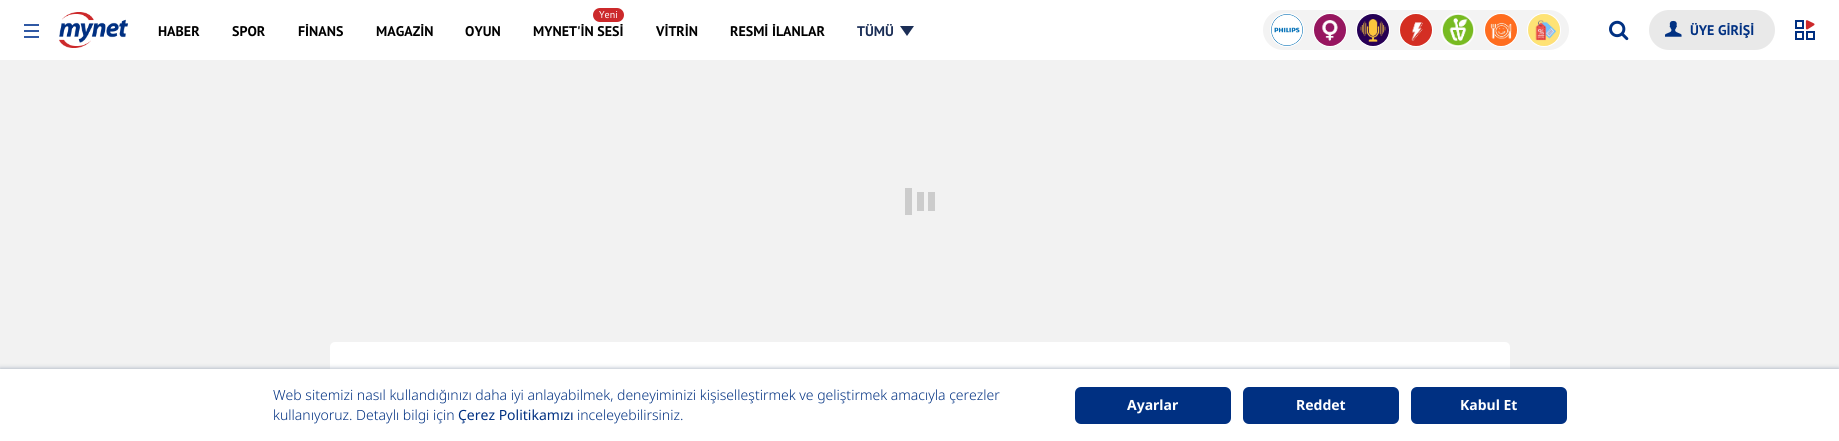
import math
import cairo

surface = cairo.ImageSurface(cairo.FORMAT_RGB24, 1839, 441)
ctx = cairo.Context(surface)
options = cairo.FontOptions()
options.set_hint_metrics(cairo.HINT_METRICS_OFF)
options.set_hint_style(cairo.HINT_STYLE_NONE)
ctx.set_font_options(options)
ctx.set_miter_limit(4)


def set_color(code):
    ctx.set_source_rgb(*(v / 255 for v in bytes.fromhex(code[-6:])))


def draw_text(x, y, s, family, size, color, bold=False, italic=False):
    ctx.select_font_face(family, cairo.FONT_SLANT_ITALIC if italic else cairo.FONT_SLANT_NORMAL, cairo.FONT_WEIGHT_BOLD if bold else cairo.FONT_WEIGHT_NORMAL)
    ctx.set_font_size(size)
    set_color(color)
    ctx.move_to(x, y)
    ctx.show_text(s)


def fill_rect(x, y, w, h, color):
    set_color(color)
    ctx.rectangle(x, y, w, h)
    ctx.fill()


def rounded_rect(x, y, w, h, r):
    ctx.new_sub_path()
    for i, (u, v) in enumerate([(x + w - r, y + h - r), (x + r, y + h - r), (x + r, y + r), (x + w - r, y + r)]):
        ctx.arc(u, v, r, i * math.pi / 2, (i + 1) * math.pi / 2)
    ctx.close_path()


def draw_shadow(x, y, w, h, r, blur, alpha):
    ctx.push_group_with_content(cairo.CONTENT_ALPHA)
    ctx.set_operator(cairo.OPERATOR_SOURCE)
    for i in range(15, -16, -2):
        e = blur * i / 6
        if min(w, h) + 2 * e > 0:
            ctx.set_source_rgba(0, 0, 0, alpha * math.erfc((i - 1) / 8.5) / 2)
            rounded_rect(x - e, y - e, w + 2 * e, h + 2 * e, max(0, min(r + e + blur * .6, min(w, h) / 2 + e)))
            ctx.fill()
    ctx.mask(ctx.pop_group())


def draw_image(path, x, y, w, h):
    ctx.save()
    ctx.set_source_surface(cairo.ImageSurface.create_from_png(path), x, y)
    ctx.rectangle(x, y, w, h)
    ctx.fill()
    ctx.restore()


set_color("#f2f2f2")
ctx.paint()
fill_rect(0, 0, 1839, 60, "#ffffff")
fill_rect(24, 24, 15, 2, "#3059a4")
fill_rect(24, 30, 15, 2, "#3059a4")
fill_rect(24, 36, 15, 2, "#3059a4")
draw_image("assets/img1.png", 59, 12, 69, 36)
draw_text(158, 36, "HABER", "PT Sans", 14, "#000000", bold=True)
draw_text(232, 36, "SPOR", "PT Sans", 14, "#000000", bold=True)
draw_text(298, 36, "FİNANS", "PT Sans", 14, "#000000", bold=True)
draw_text(376, 36, "MAGAZİN", "PT Sans", 14, "#000000", bold=True)
draw_text(465, 36, "OYUN", "PT Sans", 14, "#000000", bold=True)
set_color("#cc292b")
rounded_rect(593, 8, 31, 14, 7)
ctx.fill()
draw_text(599, 18, "Yeni", "PT Sans", 10, "#ffffff")
draw_text(533, 36, "MYNET'İN SESİ", "PT Sans", 14, "#000000", bold=True)
draw_text(656, 36, "VİTRİN", "PT Sans", 14, "#000000", bold=True)
draw_text(730, 36, "RESMİ İLANLAR", "PT Sans", 14, "#000000", bold=True)
draw_text(857, 36, "TÜMÜ", "PT Sans", 14, "#1b2e56", bold=True)
ctx.new_path()
ctx.move_to(900, 26)
ctx.line_to(914, 26)
ctx.line_to(907, 36)
ctx.close_path()
ctx.fill()
set_color("#f3f3f3")
rounded_rect(1263, 10, 306, 40, 20)
ctx.fill()
ctx.arc(1287, 30, 16.5, 0, 2 * math.pi)
set_color("#ffffff")
ctx.set_line_width(1)
ctx.stroke()
draw_image("assets/img2.png", 1271, 14, 32, 32)
ctx.arc(1330, 30, 16.5, 0, 2 * math.pi)
ctx.stroke()
draw_image("assets/img3.png", 1314, 14, 32, 32)
ctx.arc(1373, 30, 16.5, 0, 2 * math.pi)
ctx.stroke()
draw_image("assets/img4.png", 1357, 14, 32, 32)
ctx.arc(1416, 30, 16.5, 0, 2 * math.pi)
ctx.stroke()
draw_image("assets/img5.png", 1400, 14, 32, 32)
ctx.arc(1458, 30, 16.5, 0, 2 * math.pi)
ctx.stroke()
draw_image("assets/img6.png", 1442, 14, 32, 32)
ctx.arc(1501, 30, 16.5, 0, 2 * math.pi)
ctx.stroke()
draw_image("assets/img7.png", 1485, 14, 32, 32)
ctx.arc(1544, 30, 16.5, 0, 2 * math.pi)
ctx.stroke()
draw_image("assets/img8.png", 1528, 14, 32, 32)
draw_image("assets/img9.png", 1609, 20, 20, 21)
set_color("#e9e9e9")
rounded_rect(1649, 10, 126, 40, 20)
ctx.fill()
draw_image("assets/img10.png", 1665, 20, 17, 17)
draw_text(1690, 35, "ÜYE GİRİŞİ", "PT Sans", 14, "#013182", bold=True)
draw_image("assets/img11.png", 1795, 20, 20, 20)
fill_rect(905, 188, 7, 27, "#cccccc")
fill_rect(917, 192, 7, 19, "#cccccc")
fill_rect(928, 192, 7, 19, "#cccccc")
set_color("#ffffff")
rounded_rect(330, 342, 1180, 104, 5)
ctx.fill()
set_color("#9ba7b7")
draw_shadow(0, 369, 1839, 72, 0, 2.5, 1)
fill_rect(0, 369, 1839, 72, "#ffffff")
draw_text(273, 400, "Web sitemizi nasıl kullandığınızı daha iyi anlayabilmek, deneyiminizi kişiselleştirmek ve geliştirmek amacıyla çerezler", "Noto Sans Light", 14, "#013182")
draw_text(273, 420, "kullanıyoruz. Detaylı bilgi için", "Noto Sans Light", 14, "#013182")
draw_text(458, 420, "Çerez Politikamızı", "Noto Sans", 14, "#013182")
draw_text(577, 420, "inceleyebilirsiniz.", "Noto Sans Light", 14, "#013182")
set_color("#003082")
rounded_rect(1075, 387, 156, 37, 6)
ctx.fill()
draw_text(1127, 410, "Ayarlar", "Noto Sans", 14, "#ffffff", bold=True)
set_color("#003082")
rounded_rect(1243, 387, 156, 37, 6)
ctx.fill()
draw_text(1296, 410, "Reddet", "Noto Sans", 14, "#ffffff", bold=True)
set_color("#003082")
rounded_rect(1411, 387, 156, 37, 6)
ctx.fill()
draw_text(1460, 410, "Kabul Et", "Noto Sans", 14, "#ffffff", bold=True)
surface.write_to_png("output.png")
